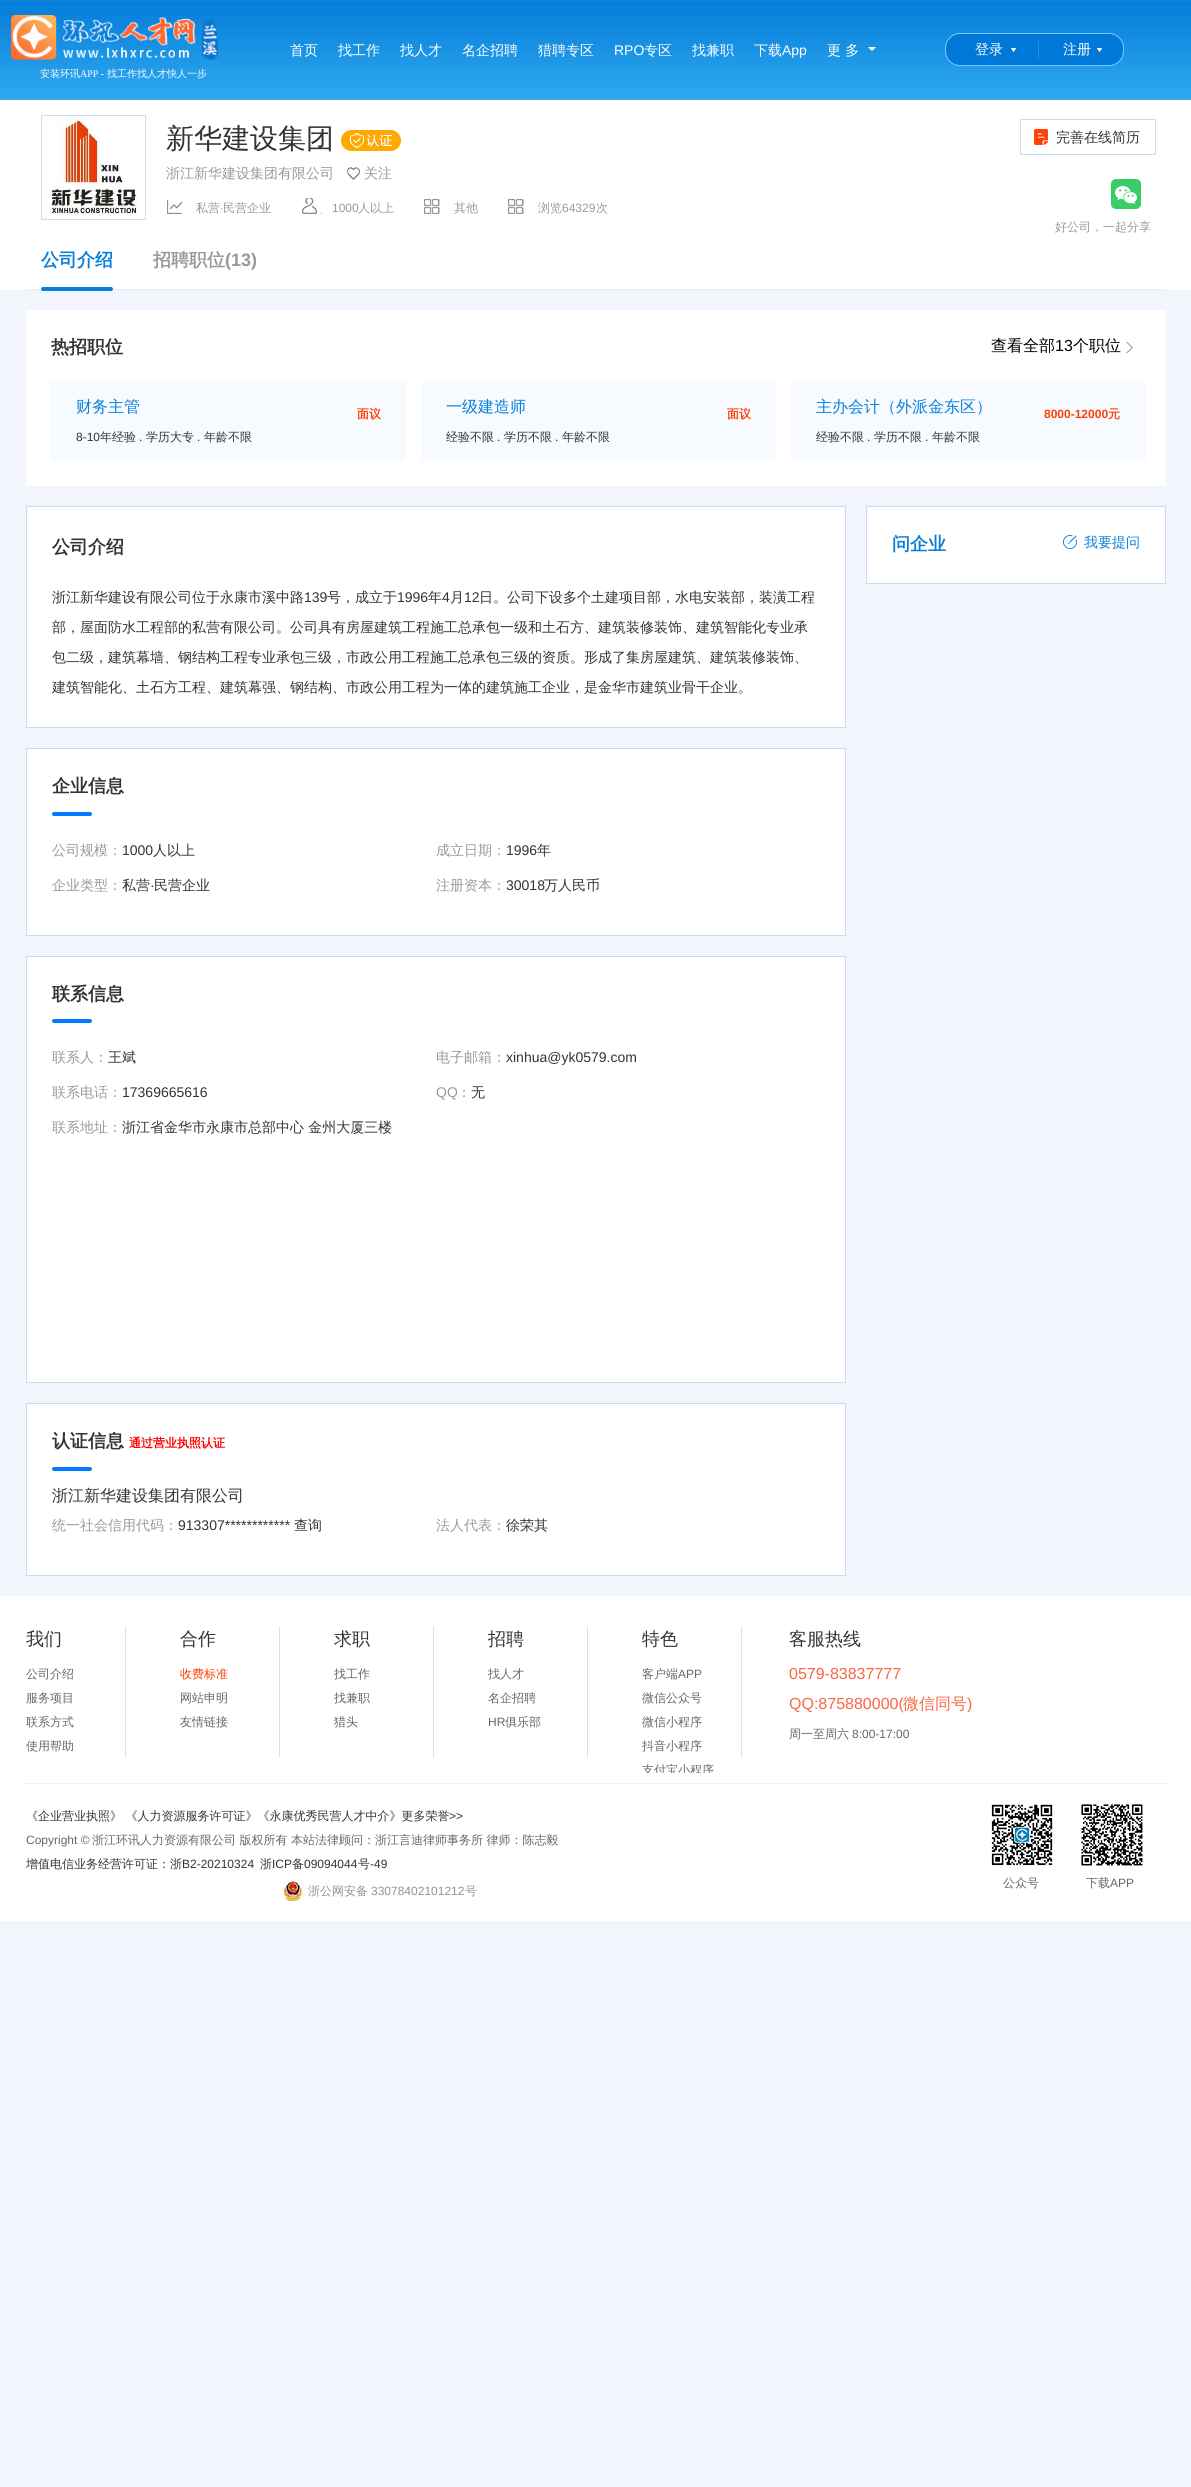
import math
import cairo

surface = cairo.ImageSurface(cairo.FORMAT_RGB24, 1191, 2487)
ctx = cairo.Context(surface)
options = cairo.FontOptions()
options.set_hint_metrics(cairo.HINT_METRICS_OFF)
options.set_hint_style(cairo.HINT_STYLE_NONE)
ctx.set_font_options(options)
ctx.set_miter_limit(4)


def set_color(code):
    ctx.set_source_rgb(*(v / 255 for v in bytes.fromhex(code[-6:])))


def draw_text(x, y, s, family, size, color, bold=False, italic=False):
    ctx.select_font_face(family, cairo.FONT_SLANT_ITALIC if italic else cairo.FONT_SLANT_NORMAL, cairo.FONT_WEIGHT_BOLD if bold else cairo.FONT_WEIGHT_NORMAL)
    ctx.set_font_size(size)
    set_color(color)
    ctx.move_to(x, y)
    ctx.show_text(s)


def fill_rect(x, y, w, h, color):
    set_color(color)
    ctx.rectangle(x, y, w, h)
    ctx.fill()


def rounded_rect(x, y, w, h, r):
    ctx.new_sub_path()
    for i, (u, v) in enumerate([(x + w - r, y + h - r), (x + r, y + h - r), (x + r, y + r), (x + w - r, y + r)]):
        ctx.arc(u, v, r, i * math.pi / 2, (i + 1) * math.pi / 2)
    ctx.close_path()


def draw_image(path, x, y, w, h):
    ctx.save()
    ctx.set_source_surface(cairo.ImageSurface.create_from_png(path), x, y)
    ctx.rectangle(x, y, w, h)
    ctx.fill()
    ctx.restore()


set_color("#f2f6fc")
ctx.paint()
draw_image("assets/img1.png", 0, 0, 1191, 100)
draw_text(290, 55, "首页", "WenQuanYi Zen Hei Medium", 14, "#ffffff")
draw_text(338, 55, "找工作", "WenQuanYi Zen Hei Medium", 14, "#ffffff")
draw_text(400, 55, "找人才", "WenQuanYi Zen Hei Medium", 14, "#ffffff")
draw_text(462, 55, "名企招聘", "WenQuanYi Zen Hei Medium", 14, "#ffffff")
draw_text(538, 55, "猎聘专区", "WenQuanYi Zen Hei Medium", 14, "#ffffff")
draw_text(614, 55, "RPO", "Liberation Sans", 14, "#ffffff")
draw_text(644, 55, "专区", "WenQuanYi Zen Hei Medium", 14, "#ffffff")
draw_text(692, 55, "找兼职", "WenQuanYi Zen Hei Medium", 14, "#ffffff")
draw_text(754, 55, "下载", "WenQuanYi Zen Hei Medium", 14, "#ffffff")
draw_text(782, 55, "App", "Liberation Sans", 14, "#ffffff")
draw_text(827, 55, "更 多", "WenQuanYi Zen Hei Medium", 14, "#ffffff")
ctx.new_path()
ctx.move_to(868, 47)
ctx.line_to(876, 47)
ctx.line_to(872, 51)
ctx.close_path()
ctx.fill()
draw_image("assets/img2.png", 945, 33, 179, 33)
draw_text(975, 54, "登录", "WenQuanYi Zen Hei Medium", 14, "#ffffff")
draw_text(1063, 54, "注册", "WenQuanYi Zen Hei Medium", 14, "#ffffff")
draw_image("assets/img3.png", 11, 15, 208, 45)
draw_text(40, 77, "安装环讯", "WenQuanYi Zen Hei Medium", 10, "#ffffff")
draw_text(80, 77, "APP -", "Liberation Serif", 10, "#ffffff")
draw_text(107, 77, "找工作找人才快人一步", "WenQuanYi Zen Hei Medium", 10, "#ffffff")
fill_rect(0, 100, 1191, 190, "#ffffff")
ctx.rectangle(41.5, 115.5, 104, 104)
set_color("#c5ddf6")
ctx.set_line_width(1)
ctx.stroke()
draw_image("assets/img4.png", 50, 116, 87, 100)
draw_text(166, 148, "新华建设集团", "WenQuanYi Zen Hei Medium", 28, "#333333")
draw_image("assets/img5.png", 341, 130, 60, 21)
draw_text(166, 178, "浙江新华建设集团有限公司", "WenQuanYi Zen Hei Medium", 14, "#999999")
draw_image("assets/img6.png", 347, 167, 13, 13)
draw_text(364, 178, "关注", "WenQuanYi Zen Hei Medium", 14, "#999999")
draw_image("assets/img7.png", 167, 200, 15, 14)
draw_text(196, 212, "私营", "WenQuanYi Zen Hei Medium", 12, "#999999")
draw_text(220, 212, "·", "Liberation Sans", 12, "#999999")
draw_text(223, 212, "民营企业", "WenQuanYi Zen Hei Medium", 12, "#999999")
draw_image("assets/img8.png", 302, 198, 20, 16)
draw_text(332, 212, "1000", "Liberation Sans", 12, "#999999")
draw_text(358, 212, "人以上", "WenQuanYi Zen Hei Medium", 12, "#999999")
draw_image("assets/img9.png", 424, 199, 16, 15)
draw_text(454, 212, "其他", "WenQuanYi Zen Hei Medium", 12, "#999999")
draw_image("assets/img9.png", 508, 199, 16, 15)
draw_text(538, 212, "浏览", "WenQuanYi Zen Hei Medium", 12, "#999999")
draw_text(562, 212, "64329", "Liberation Sans", 12, "#999999")
draw_text(596, 212, "次", "WenQuanYi Zen Hei Medium", 12, "#999999")
ctx.rectangle(1020.5, 119.5, 135, 35)
set_color("#c5ddf6")
ctx.stroke()
draw_image("assets/img10.png", 1034, 129, 14, 16)
draw_text(1056, 142, "完善在线简历", "WenQuanYi Zen Hei Medium", 14, "#333333")
draw_image("assets/img11.png", 1111, 179, 30, 30)
draw_text(1055, 231, "好公司，一起分享", "WenQuanYi Zen Hei Medium", 12, "#999999")
fill_rect(26, 289, 1140, 1, "#eeeeee")
draw_text(41, 266, "公司介绍", "WenQuanYi Zen Hei", 18, "#0780db", bold=True)
rounded_rect(41, 287, 72, 4, 2)
ctx.fill()
draw_text(153, 266, "招聘职位", "WenQuanYi Zen Hei", 18, "#999999", bold=True)
draw_text(225, 266, "(13)", "Liberation Sans", 18, "#999999", bold=True)
fill_rect(26, 310, 1140, 176, "#ffffff")
draw_text(51, 353, "热招职位", "WenQuanYi Zen Hei", 18, "#333333", bold=True)
draw_text(991, 351, "查看全部", "WenQuanYi Zen Hei Medium", 16, "#000000")
draw_text(1055, 351, "13", "Liberation Sans", 16, "#000000")
draw_text(1073, 351, "个职位", "WenQuanYi Zen Hei Medium", 16, "#000000")
draw_image("assets/img12.png", 1126, 342, 7, 11)
fill_rect(51, 381, 355, 80, "#f7faff")
draw_text(76, 412, "财务主管", "WenQuanYi Zen Hei Medium", 16, "#0780db")
draw_text(357, 418, "面议", "WenQuanYi Zen Hei", 12, "#ff3f05", bold=True)
draw_text(76, 441, "8-10", "Liberation Sans", 12, "#333333")
draw_text(100, 441, "年经验", "WenQuanYi Zen Hei Medium", 12, "#333333")
draw_text(139, 441, ".", "Liberation Sans", 12, "#333333")
draw_text(146, 441, "学历大专", "WenQuanYi Zen Hei Medium", 12, "#333333")
draw_text(197, 441, ".", "Liberation Sans", 12, "#333333")
draw_text(204, 441, "年龄不限", "WenQuanYi Zen Hei Medium", 12, "#333333")
fill_rect(421, 381, 355, 80, "#f7faff")
draw_text(446, 412, "一级建造师", "WenQuanYi Zen Hei Medium", 16, "#0780db")
draw_text(727, 418, "面议", "WenQuanYi Zen Hei", 12, "#ff3f05", bold=True)
ctx.save()
ctx.rectangle(446, 419, 305, 27)
ctx.clip()
draw_text(446, 441, "经验不限", "WenQuanYi Zen Hei Medium", 12, "#333333")
ctx.restore()
draw_text(497, 441, ".", "Liberation Sans", 12, "#333333")
draw_text(504, 441, "学历不限", "WenQuanYi Zen Hei Medium", 12, "#333333")
draw_text(555, 441, ".", "Liberation Sans", 12, "#333333")
draw_text(562, 441, "年龄不限", "WenQuanYi Zen Hei Medium", 12, "#333333")
fill_rect(791, 381, 355, 80, "#f7faff")
draw_text(816, 412, "主办会计（外派金东区）", "WenQuanYi Zen Hei Medium", 16, "#0780db")
draw_text(1044, 418, "8000-12000", "Liberation Sans", 12, "#ff3f05", bold=True)
draw_text(1108, 418, "元", "WenQuanYi Zen Hei", 12, "#ff3f05", bold=True)
ctx.save()
ctx.rectangle(816, 419, 305, 27)
ctx.clip()
draw_text(816, 441, "经验不限", "WenQuanYi Zen Hei Medium", 12, "#333333")
ctx.restore()
draw_text(867, 441, ".", "Liberation Sans", 12, "#333333")
draw_text(874, 441, "学历不限", "WenQuanYi Zen Hei Medium", 12, "#333333")
draw_text(925, 441, ".", "Liberation Sans", 12, "#333333")
draw_text(932, 441, "年龄不限", "WenQuanYi Zen Hei Medium", 12, "#333333")
set_color("#ffffff")
ctx.rectangle(26.5, 506.5, 819, 221)
ctx.fill_preserve()
set_color("#c5ddf6")
ctx.stroke()
draw_text(52, 553, "公司介绍", "WenQuanYi Zen Hei", 18, "#333333", bold=True)
draw_text(52, 602, "浙江新华建设有限公司位于永康市溪中路", "WenQuanYi Zen Hei Medium", 14, "#333333")
draw_text(304, 602, "139", "Liberation Sans", 14, "#333333")
draw_text(327, 602, "号，成立于", "WenQuanYi Zen Hei Medium", 14, "#333333")
draw_text(397, 602, "1996", "Liberation Sans", 14, "#333333")
draw_text(428, 602, "年", "WenQuanYi Zen Hei Medium", 14, "#333333")
draw_text(442, 602, "4", "Liberation Sans", 14, "#333333")
draw_text(450, 602, "月", "WenQuanYi Zen Hei Medium", 14, "#333333")
draw_text(464, 602, "12", "Liberation Sans", 14, "#333333")
draw_text(479, 602, "日。公司下设多个土建项目部，水电安装部，装潢工程", "WenQuanYi Zen Hei Medium", 14, "#333333")
draw_text(52, 632, "部，屋面防水工程部的私营有限公司。公司具有房屋建筑工程施工总承包一级和土石方、建筑装修装饰、建筑智能化专业承", "WenQuanYi Zen Hei Medium", 14, "#333333")
draw_text(52, 662, "包二级，建筑幕墙、钢结构工程专业承包三级，市政公用工程施工总承包三级的资质。形成了集房屋建筑、建筑装修装饰、", "WenQuanYi Zen Hei Medium", 14, "#333333")
draw_text(52, 692, "建筑智能化、土石方工程、建筑幕强、钢结构、市政公用工程为一体的建筑施工企业，是金华市建筑业骨干企业。", "WenQuanYi Zen Hei Medium", 14, "#333333")
set_color("#ffffff")
ctx.rectangle(26.5, 748.5, 819, 187)
ctx.fill_preserve()
set_color("#c5ddf6")
ctx.stroke()
draw_text(52, 792, "企业信息", "WenQuanYi Zen Hei", 18, "#333333", bold=True)
set_color("#007aff")
rounded_rect(52, 812, 40, 4, 2)
ctx.fill()
draw_text(52, 855, "公司规模：", "WenQuanYi Zen Hei Medium", 14, "#999999")
draw_text(122, 855, "1000", "Liberation Sans", 14, "#333333")
draw_text(153, 855, "人以上", "WenQuanYi Zen Hei Medium", 14, "#333333")
draw_text(436, 855, "成立日期：", "WenQuanYi Zen Hei Medium", 14, "#999999")
draw_text(506, 855, "1996", "Liberation Sans", 14, "#333333")
draw_text(537, 855, "年", "WenQuanYi Zen Hei Medium", 14, "#333333")
draw_text(52, 890, "企业类型：", "WenQuanYi Zen Hei Medium", 14, "#999999")
draw_text(122, 890, "私营", "WenQuanYi Zen Hei Medium", 14, "#333333")
draw_text(150, 890, "·", "Liberation Sans", 14, "#333333")
draw_text(154, 890, "民营企业", "WenQuanYi Zen Hei Medium", 14, "#333333")
draw_text(436, 890, "注册资本：", "WenQuanYi Zen Hei Medium", 14, "#999999")
draw_text(506, 890, "30018", "Liberation Sans", 14, "#333333")
draw_text(544, 890, "万人民币", "WenQuanYi Zen Hei Medium", 14, "#333333")
set_color("#ffffff")
ctx.rectangle(26.5, 956.5, 819, 426)
ctx.fill_preserve()
set_color("#c5ddf6")
ctx.stroke()
draw_text(52, 1000, "联系信息", "WenQuanYi Zen Hei", 18, "#333333", bold=True)
set_color("#007aff")
rounded_rect(52, 1019, 40, 4, 2)
ctx.fill()
draw_text(52, 1062, "联系人：", "WenQuanYi Zen Hei Medium", 14, "#999999")
draw_text(108, 1062, "王斌", "WenQuanYi Zen Hei Medium", 14, "#333333")
draw_text(436, 1062, "电子邮箱：", "WenQuanYi Zen Hei Medium", 14, "#999999")
draw_text(506, 1062, "xinhua@yk0579.com", "Liberation Sans", 14, "#333333")
draw_text(52, 1097, "联系电话：", "WenQuanYi Zen Hei Medium", 14, "#999999")
draw_text(122, 1097, "17369665616", "Liberation Sans", 14, "#333333")
draw_text(436, 1097, "QQ", "Liberation Sans", 14, "#999999")
draw_text(457, 1097, "：", "WenQuanYi Zen Hei Medium", 14, "#999999")
draw_text(471, 1097, "无", "WenQuanYi Zen Hei Medium", 14, "#333333")
draw_text(52, 1132, "联系地址：", "WenQuanYi Zen Hei Medium", 14, "#999999")
draw_text(122, 1132, "浙江省金华市永康市总部中心 金州大厦三楼", "WenQuanYi Zen Hei Medium", 14, "#333333")
set_color("#ffffff")
ctx.rectangle(26.5, 1403.5, 819, 172)
ctx.fill_preserve()
set_color("#c5ddf6")
ctx.stroke()
draw_text(52, 1447, "认证信息", "WenQuanYi Zen Hei", 18, "#333333", bold=True)
draw_text(129, 1447, "通过营业执照认证", "WenQuanYi Zen Hei", 12, "#ff0000", bold=True)
set_color("#007aff")
rounded_rect(52, 1467, 40, 4, 2)
ctx.fill()
draw_text(52, 1501, "浙江新华建设集团有限公司", "WenQuanYi Zen Hei Medium", 16, "#333333")
draw_text(52, 1530, "统一社会信用代码：", "WenQuanYi Zen Hei Medium", 14, "#999999")
draw_text(178, 1530, "913307************", "Liberation Sans", 14, "#333333")
draw_text(294, 1530, "查询", "WenQuanYi Zen Hei Medium", 14, "#333333")
draw_text(436, 1530, "法人代表：", "WenQuanYi Zen Hei Medium", 14, "#999999")
draw_text(506, 1530, "徐荣其", "WenQuanYi Zen Hei Medium", 14, "#333333")
set_color("#ffffff")
ctx.rectangle(866.5, 506.5, 299, 77)
ctx.fill_preserve()
set_color("#c5ddf6")
ctx.stroke()
draw_text(892, 550, "问企业", "WenQuanYi Zen Hei", 18, "#0780db", bold=True)
draw_image("assets/img13.png", 1063, 535, 14, 14)
draw_text(1084, 547, "我要提问", "WenQuanYi Zen Hei Medium", 14, "#0780db")
fill_rect(0, 1596, 1191, 325, "#ffffff")
fill_rect(125, 1626, 1, 132, "#dfdfdf")
draw_text(26, 1645, "我们", "WenQuanYi Zen Hei Medium", 18, "#333333")
draw_text(26, 1678, "公司介绍", "WenQuanYi Zen Hei Medium", 12, "#666666")
draw_text(26, 1702, "服务项目", "WenQuanYi Zen Hei Medium", 12, "#666666")
ctx.save()
ctx.rectangle(26, 1611, 1140, 162)
ctx.clip()
draw_text(26, 1726, "联系方式", "WenQuanYi Zen Hei Medium", 12, "#666666")
ctx.restore()
draw_text(26, 1750, "使用帮助", "WenQuanYi Zen Hei Medium", 12, "#666666")
fill_rect(279, 1626, 1, 132, "#dfdfdf")
draw_text(180, 1645, "合作", "WenQuanYi Zen Hei Medium", 18, "#333333")
draw_text(180, 1678, "收费标准", "WenQuanYi Zen Hei Medium", 12, "#ff3f05")
draw_text(180, 1702, "网站申明", "WenQuanYi Zen Hei Medium", 12, "#666666")
draw_text(180, 1726, "友情链接", "WenQuanYi Zen Hei Medium", 12, "#666666")
fill_rect(433, 1626, 1, 132, "#dfdfdf")
draw_text(334, 1645, "求职", "WenQuanYi Zen Hei Medium", 18, "#333333")
draw_text(334, 1678, "找工作", "WenQuanYi Zen Hei Medium", 12, "#666666")
draw_text(334, 1702, "找兼职", "WenQuanYi Zen Hei Medium", 12, "#666666")
draw_text(334, 1726, "猎头", "WenQuanYi Zen Hei Medium", 12, "#666666")
fill_rect(587, 1626, 1, 132, "#dfdfdf")
draw_text(488, 1645, "招聘", "WenQuanYi Zen Hei Medium", 18, "#333333")
draw_text(488, 1678, "找人才", "WenQuanYi Zen Hei Medium", 12, "#666666")
draw_text(488, 1702, "名企招聘", "WenQuanYi Zen Hei Medium", 12, "#666666")
draw_text(488, 1726, "HR", "Liberation Sans", 12, "#666666")
draw_text(505, 1726, "俱乐部", "WenQuanYi Zen Hei Medium", 12, "#666666")
fill_rect(741, 1626, 1, 132, "#dfdfdf")
draw_text(642, 1645, "特色", "WenQuanYi Zen Hei Medium", 18, "#333333")
draw_text(642, 1678, "客户端", "WenQuanYi Zen Hei Medium", 12, "#666666")
draw_text(678, 1678, "APP", "Liberation Sans", 12, "#666666")
draw_text(642, 1702, "微信公众号", "WenQuanYi Zen Hei Medium", 12, "#666666")
draw_text(642, 1726, "微信小程序", "WenQuanYi Zen Hei Medium", 12, "#666666")
draw_text(642, 1750, "抖音小程序", "WenQuanYi Zen Hei Medium", 12, "#666666")
ctx.save()
ctx.rectangle(26, 1611, 1140, 162)
ctx.clip()
draw_text(642, 1774, "支付宝小程序", "WenQuanYi Zen Hei Medium", 12, "#666666")
ctx.restore()
draw_text(789, 1645, "客服热线", "WenQuanYi Zen Hei Medium", 18, "#333333")
draw_text(789, 1679, "0579-83837777", "Liberation Sans", 16, "#fc6642")
draw_text(789, 1709, "QQ:875880000(", "Liberation Sans", 16, "#fc6642")
draw_text(903, 1709, "微信同号", "WenQuanYi Zen Hei Medium", 16, "#fc6642")
draw_text(967, 1709, ")", "Liberation Sans", 16, "#fc6642")
draw_text(789, 1738, "周一至周六", "WenQuanYi Zen Hei Medium", 12, "#666666")
draw_text(852, 1738, "8:00-17:00", "Liberation Sans", 12, "#666666")
fill_rect(26, 1783, 1140, 1, "#f0eeef")
draw_text(26, 1820, "《企业营业执照》 《人力资源服务许可证》《永康优秀民营人才中介》更多荣誉", "WenQuanYi Zen Hei Medium", 12, "#333333")
draw_text(449, 1820, ">>", "Liberation Sans", 12, "#333333")
draw_text(26, 1844, "Copyright ©", "Liberation Sans", 12, "#666666")
draw_text(92, 1844, "浙江环讯人力资源有限公司 版权所有", "WenQuanYi Zen Hei Medium", 12, "#666666")
draw_text(291, 1844, "本站法律顾问：浙江言迪律师事务所 律师：陈志毅", "WenQuanYi Zen Hei Medium", 12, "#666666")
ctx.save()
ctx.rectangle(26, 1784, 1140, 132)
ctx.clip()
draw_text(26, 1868, "增值电信业务经营许可证：浙", "WenQuanYi Zen Hei Medium", 12, "#333333")
ctx.restore()
draw_text(182, 1868, "B2-20210324", "Liberation Sans", 12, "#333333")
draw_text(260, 1868, "浙", "WenQuanYi Zen Hei Medium", 12, "#333333")
draw_text(272, 1868, "ICP", "Liberation Sans", 12, "#333333")
draw_text(292, 1868, "备", "WenQuanYi Zen Hei Medium", 12, "#333333")
draw_text(304, 1868, "09094044", "Liberation Sans", 12, "#333333")
draw_text(358, 1868, "号", "WenQuanYi Zen Hei Medium", 12, "#333333")
draw_text(370, 1868, "-49", "Liberation Sans", 12, "#333333")
draw_image("assets/img14.png", 284, 1881, 18, 20)
draw_text(308, 1895, "浙公网安备", "WenQuanYi Zen Hei Medium", 12, "#939393")
draw_text(371, 1895, "33078402101212", "Liberation Sans", 12, "#939393")
draw_text(465, 1895, "号", "WenQuanYi Zen Hei Medium", 12, "#939393")
draw_image("assets/img15.png", 991, 1804, 62, 62)
draw_text(1003, 1887, "公众号", "WenQuanYi Zen Hei Medium", 12, "#666666")
draw_image("assets/img16.png", 1081, 1804, 62, 62)
draw_text(1086, 1887, "下载", "WenQuanYi Zen Hei Medium", 12, "#666666")
draw_text(1110, 1887, "APP", "Liberation Sans", 12, "#666666")
surface.write_to_png("output.png")
